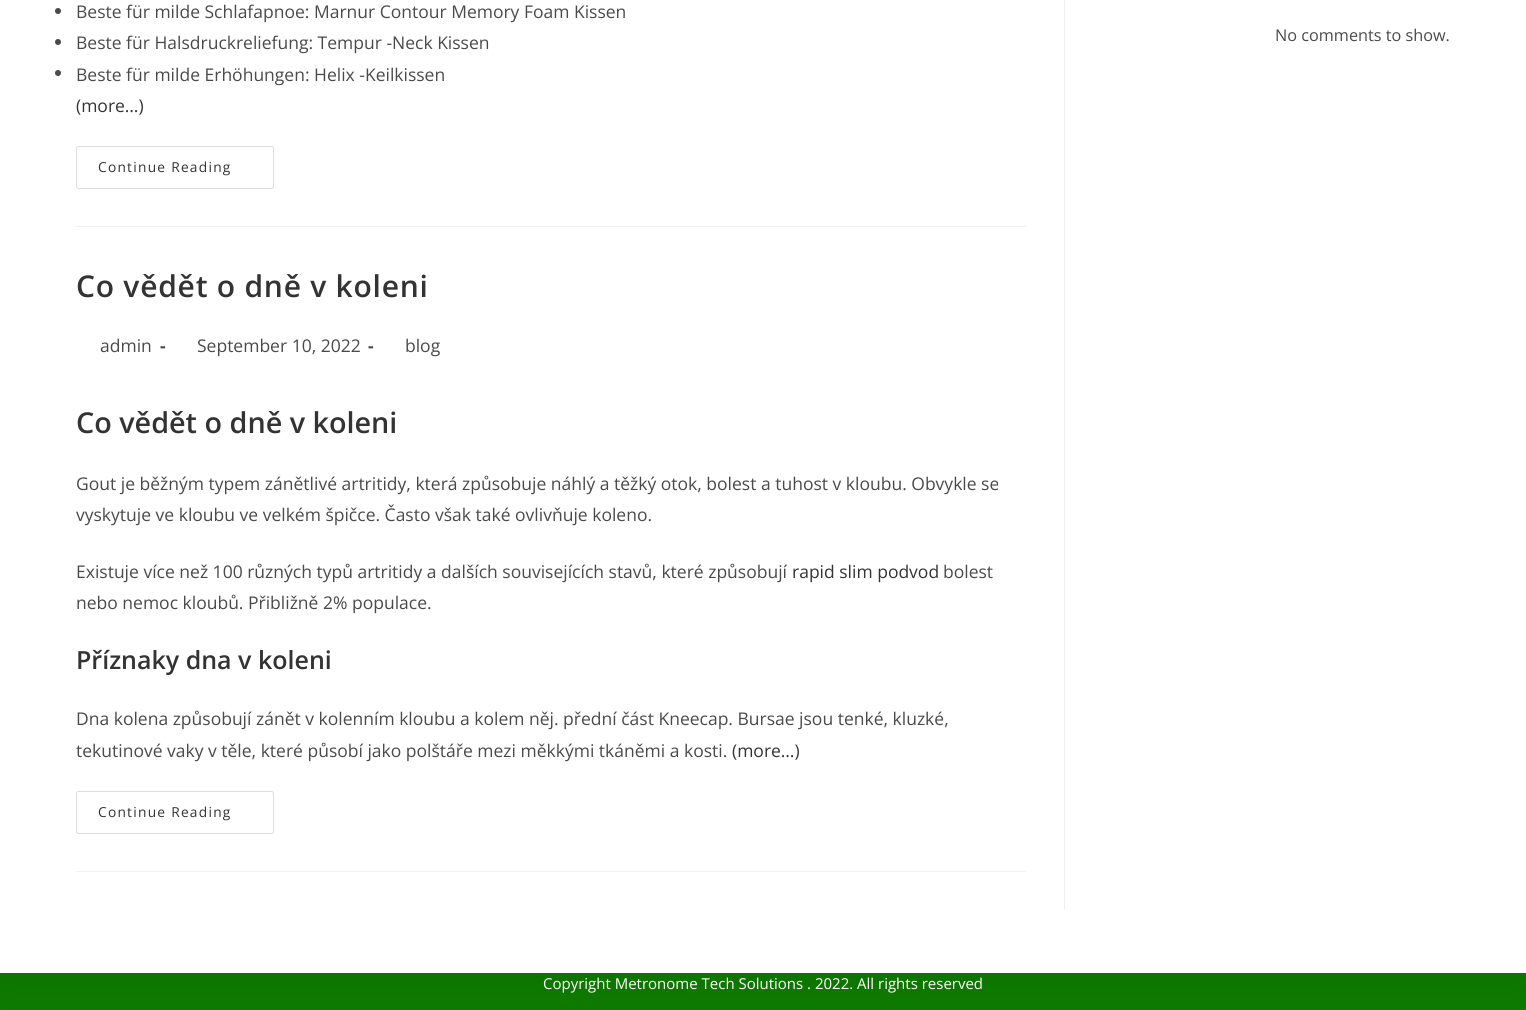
import math
import cairo

surface = cairo.ImageSurface(cairo.FORMAT_RGB24, 1526, 1010)
ctx = cairo.Context(surface)
options = cairo.FontOptions()
options.set_hint_metrics(cairo.HINT_METRICS_OFF)
options.set_hint_style(cairo.HINT_STYLE_NONE)
ctx.set_font_options(options)
ctx.set_miter_limit(4)


def set_color(code):
    ctx.set_source_rgb(*(v / 255 for v in bytes.fromhex(code[-6:])))


def draw_text(x, y, s, family, size, color, bold=False, italic=False):
    ctx.select_font_face(family, cairo.FONT_SLANT_ITALIC if italic else cairo.FONT_SLANT_NORMAL, cairo.FONT_WEIGHT_BOLD if bold else cairo.FONT_WEIGHT_NORMAL)
    ctx.set_font_size(size)
    set_color(color)
    ctx.move_to(x, y)
    ctx.show_text(s)


def draw_spaced(x, y, s, letter, word):
    ctx.move_to(x, y)
    for ch in s:
        ctx.show_text(ch)
        ctx.rel_move_to(letter + word * (ch == ' '), 0)


def fill_rect(x, y, w, h, color):
    set_color(color)
    ctx.rectangle(x, y, w, h)
    ctx.fill()


def rounded_rect(x, y, w, h, r):
    ctx.new_sub_path()
    for i, (u, v) in enumerate([(x + w - r, y + h - r), (x + r, y + h - r), (x + r, y + r), (x + w - r, y + r)]):
        ctx.arc(u, v, r, i * math.pi / 2, (i + 1) * math.pi / 2)
    ctx.close_path()


def draw_shadow(x, y, w, h, r, blur, alpha):
    ctx.push_group_with_content(cairo.CONTENT_ALPHA)
    ctx.set_operator(cairo.OPERATOR_SOURCE)
    for i in range(15, -16, -2):
        e = blur * i / 6
        if min(w, h) + 2 * e > 0:
            ctx.set_source_rgba(0, 0, 0, alpha * math.erfc((i - 1) / 8.5) / 2)
            rounded_rect(x - e, y - e, w + 2 * e, h + 2 * e, max(0, min(r + e + blur * .6, min(w, h) / 2 + e)))
            ctx.fill()
    ctx.mask(ctx.pop_group())


set_color("#0e7a00")
ctx.paint()
set_color("#000000")
draw_shadow(0, -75, 1526, 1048, 0, 25, 0.1)
fill_rect(0, 0, 1526, 973, "#ffffff")
fill_rect(1064, 0, 1, 910, "#f1f1f1")
fill_rect(76, 226, 950, 1, "#f1f1f1")
set_color("#4a4a4a")
ctx.arc(58, 11, 3, 0, 2 * math.pi)
ctx.fill()
draw_text(76, 18, "Beste für milde Schlafapnoe: Marnur Contour Memory Foam Kissen", "Open Sans", 17.5, "#4a4a4a")
ctx.new_path()
ctx.arc(58, 42, 3, 0, 2 * math.pi)
ctx.fill()
draw_text(76, 49, "Beste für Halsdruckreliefung: Tempur -Neck Kissen", "Open Sans", 17.5, "#4a4a4a")
ctx.new_path()
ctx.arc(58, 73, 3, 0, 2 * math.pi)
ctx.fill()
draw_text(76, 81, "Beste für milde Erhöhungen: Helix -Keilkissen", "Open Sans", 17.5, "#4a4a4a")
draw_text(76, 112, "(more…)", "Open Sans", 17.5, "#333333")
rounded_rect(76.5, 146.5, 197, 42, 2)
set_color("#dddddd")
ctx.set_line_width(1)
ctx.stroke()
ctx.set_font_size(13.75)
set_color("#333333")
draw_spaced(98, 172, "Continue Reading", 1.25, 0)
fill_rect(76, 871, 950, 1, "#f1f1f1")
ctx.select_font_face("Open Sans SemiBold")
ctx.set_font_size(30)
set_color("#333333")
draw_spaced(76, 297, "Co vědět o dně v koleni", 0.75, 0)
draw_text(100, 352, "admin", "Open Sans", 17.5, "#4a4a4a")
draw_text(160, 352, "-", "Open Sans", 17.5, "#4a4a4a", bold=True)
draw_text(197, 352, "September 10, 2022", "Open Sans", 17.5, "#4a4a4a")
draw_text(368, 352, "-", "Open Sans", 17.5, "#4a4a4a", bold=True)
draw_text(405, 352, "blog", "Open Sans", 17.5, "#4a4a4a")
draw_text(76, 433, "Co vědět o dně v koleni", "Open Sans SemiBold", 28.75, "#333333")
draw_text(76, 490, "Gout je běžným typem zánětlivé artritidy, která způsobuje náhlý a těžký otok, bolest a tuhost v kloubu. Obvykle se", "Open Sans", 17.5, "#4a4a4a")
draw_text(76, 521, "vyskytuje ve kloubu ve velkém špičce. Často však také ovlivňuje koleno.", "Open Sans", 17.5, "#4a4a4a")
draw_text(76, 578, "Existuje více než 100 různých typů artritidy a dalších souvisejících stavů, které způsobují", "Open Sans", 17.5, "#4a4a4a")
draw_text(792, 578, "rapid slim podvod", "Open Sans", 17.5, "#333333")
draw_text(943, 578, "bolest", "Open Sans", 17.5, "#4a4a4a")
draw_text(76, 609, "nebo nemoc kloubů. Přibližně 2% populace.", "Open Sans", 17.5, "#4a4a4a")
draw_text(76, 669, "Příznaky dna v koleni", "Open Sans SemiBold", 25, "#333333")
draw_text(76, 725, "Dna kolena způsobují zánět v kolenním kloubu a kolem něj. přední část Kneecap. Bursae jsou tenké, kluzké,", "Open Sans", 17.5, "#4a4a4a")
draw_text(76, 757, "tekutinové vaky v těle, které působí jako polštáře mezi měkkými tkáněmi a kosti.", "Open Sans", 17.5, "#4a4a4a")
draw_text(732, 757, "(more…)", "Open Sans", 17.5, "#333333")
rounded_rect(76.5, 791.5, 197, 42, 2)
set_color("#dddddd")
ctx.stroke()
ctx.set_font_size(13.75)
set_color("#333333")
draw_spaced(98, 817, "Continue Reading", 1.25, 0)
draw_text(1275, 41, "No comments to show.", "Open Sans", 16.25, "#4a4a4a")
draw_text(543, 989, "Copyright Metronome Tech Solutions . 2022. All rights reserved", "Open Sans", 15, "#ffffff")
surface.write_to_png("output.png")
